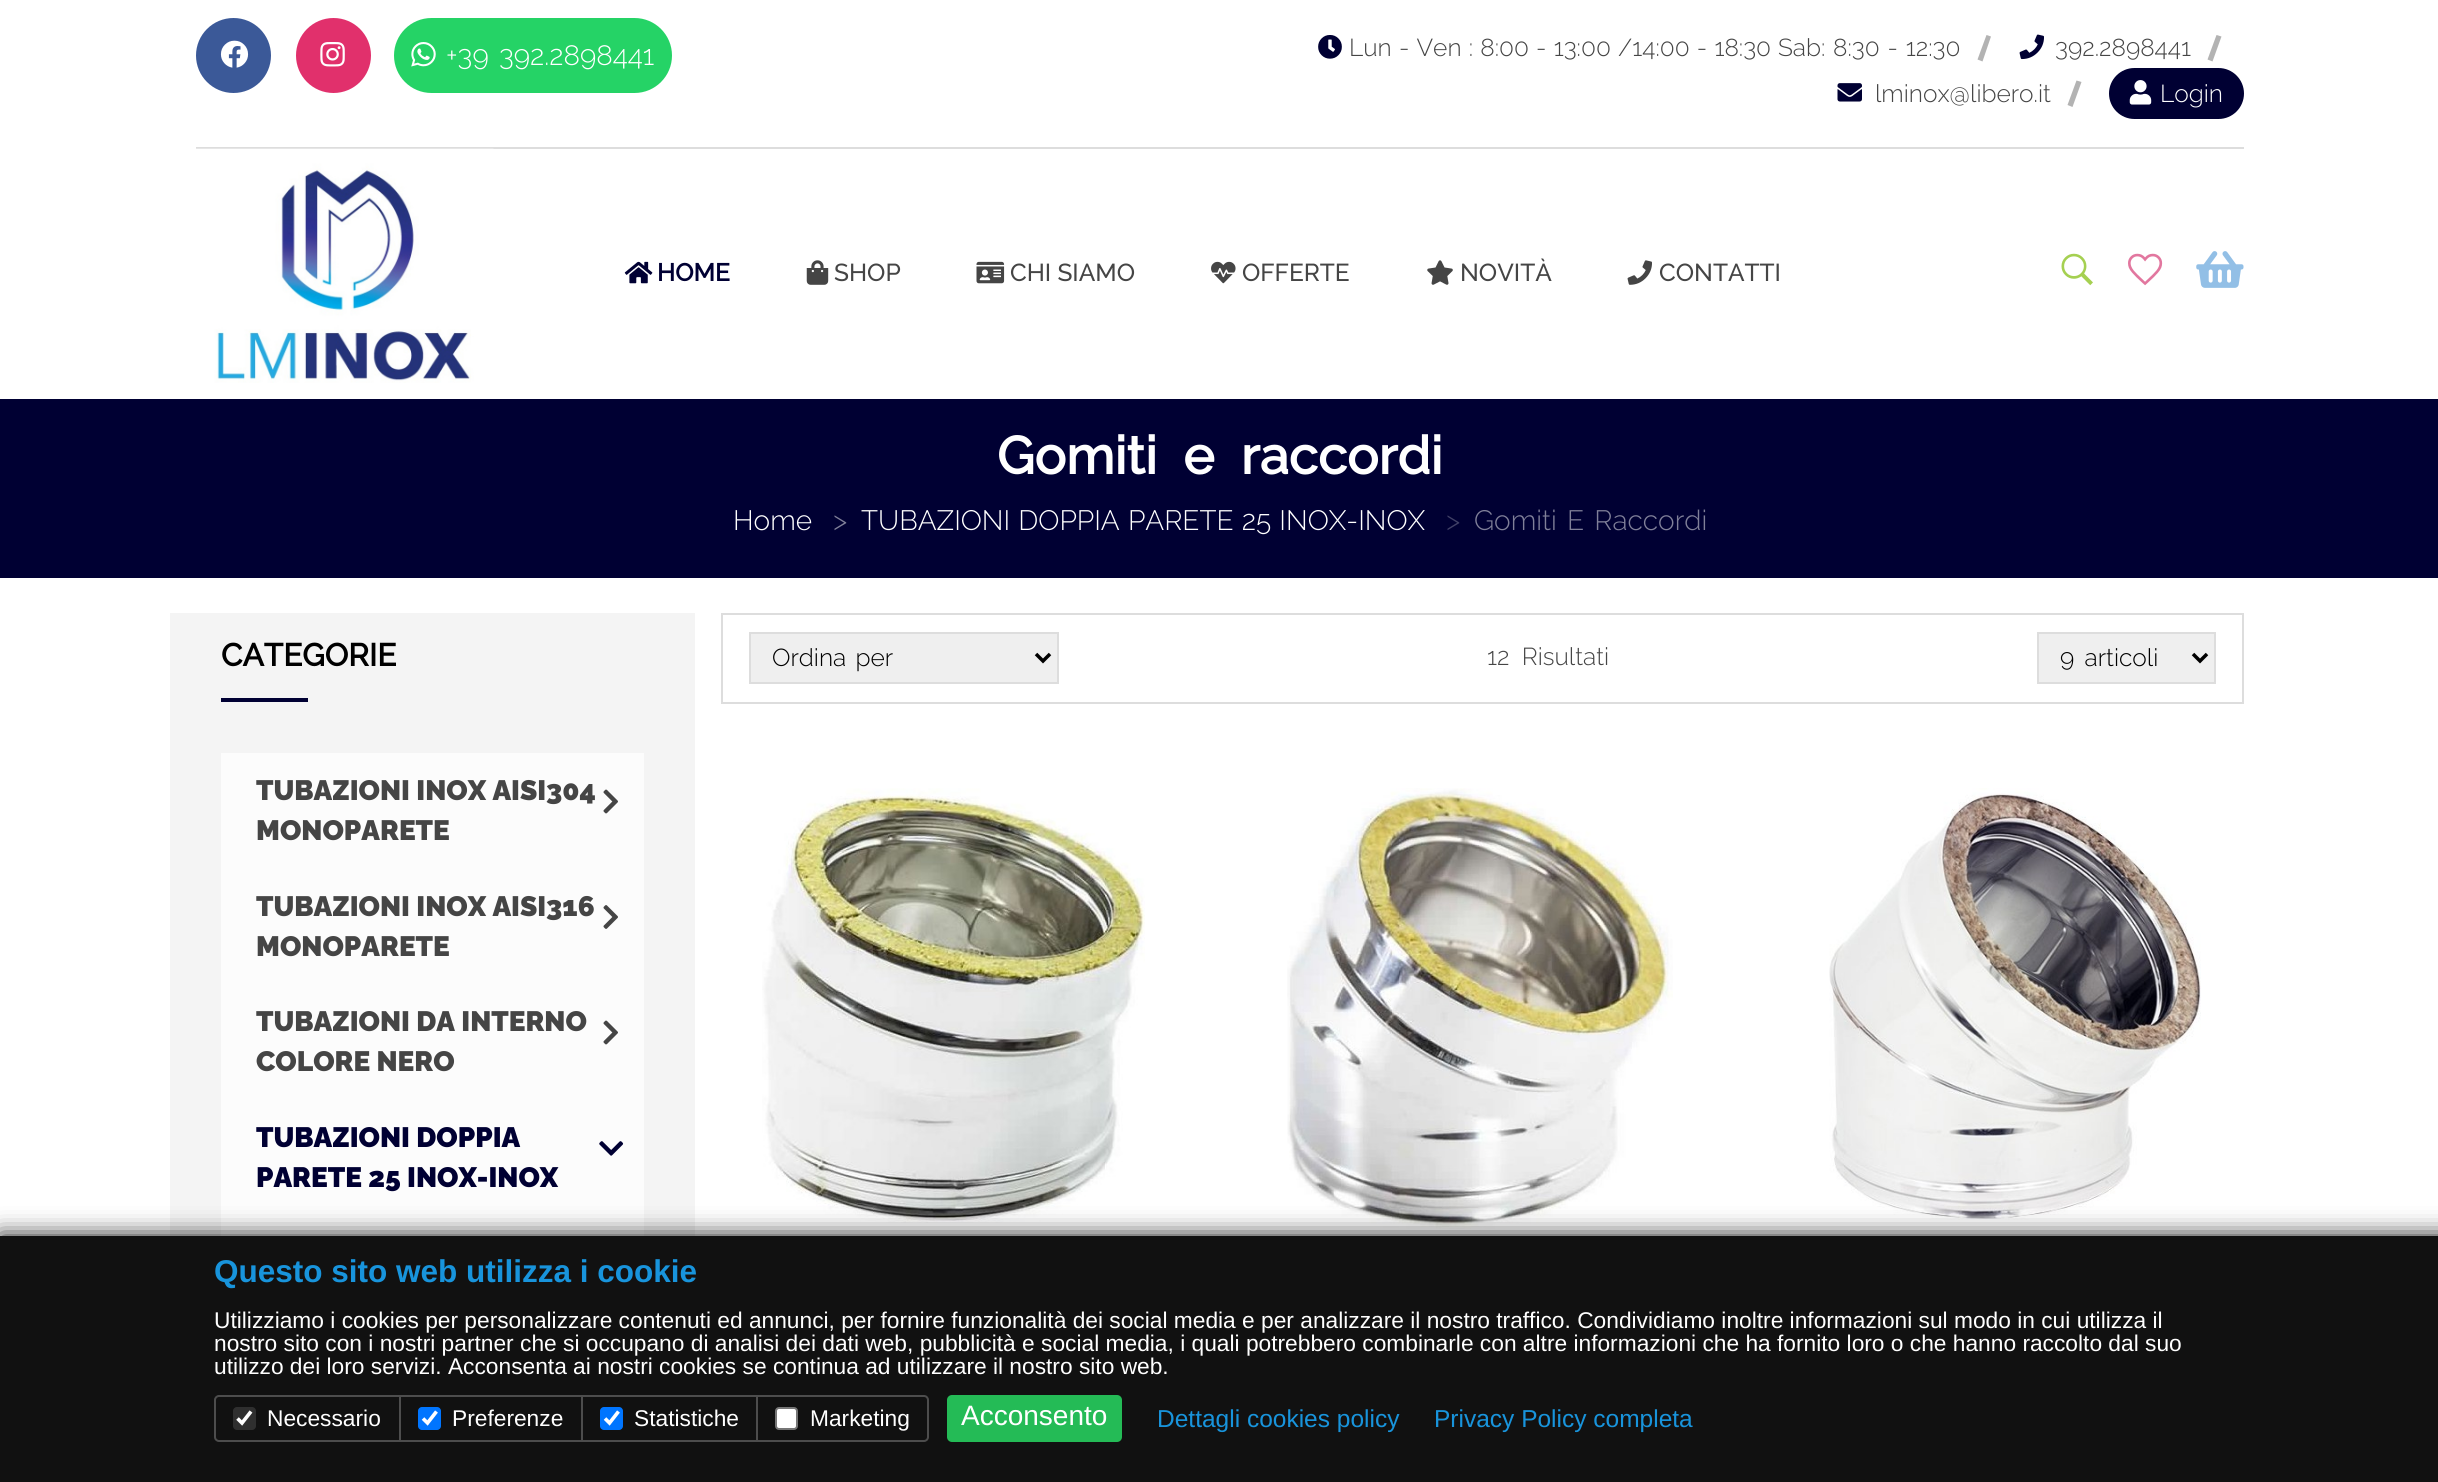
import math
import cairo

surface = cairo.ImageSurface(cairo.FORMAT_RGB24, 2438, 1482)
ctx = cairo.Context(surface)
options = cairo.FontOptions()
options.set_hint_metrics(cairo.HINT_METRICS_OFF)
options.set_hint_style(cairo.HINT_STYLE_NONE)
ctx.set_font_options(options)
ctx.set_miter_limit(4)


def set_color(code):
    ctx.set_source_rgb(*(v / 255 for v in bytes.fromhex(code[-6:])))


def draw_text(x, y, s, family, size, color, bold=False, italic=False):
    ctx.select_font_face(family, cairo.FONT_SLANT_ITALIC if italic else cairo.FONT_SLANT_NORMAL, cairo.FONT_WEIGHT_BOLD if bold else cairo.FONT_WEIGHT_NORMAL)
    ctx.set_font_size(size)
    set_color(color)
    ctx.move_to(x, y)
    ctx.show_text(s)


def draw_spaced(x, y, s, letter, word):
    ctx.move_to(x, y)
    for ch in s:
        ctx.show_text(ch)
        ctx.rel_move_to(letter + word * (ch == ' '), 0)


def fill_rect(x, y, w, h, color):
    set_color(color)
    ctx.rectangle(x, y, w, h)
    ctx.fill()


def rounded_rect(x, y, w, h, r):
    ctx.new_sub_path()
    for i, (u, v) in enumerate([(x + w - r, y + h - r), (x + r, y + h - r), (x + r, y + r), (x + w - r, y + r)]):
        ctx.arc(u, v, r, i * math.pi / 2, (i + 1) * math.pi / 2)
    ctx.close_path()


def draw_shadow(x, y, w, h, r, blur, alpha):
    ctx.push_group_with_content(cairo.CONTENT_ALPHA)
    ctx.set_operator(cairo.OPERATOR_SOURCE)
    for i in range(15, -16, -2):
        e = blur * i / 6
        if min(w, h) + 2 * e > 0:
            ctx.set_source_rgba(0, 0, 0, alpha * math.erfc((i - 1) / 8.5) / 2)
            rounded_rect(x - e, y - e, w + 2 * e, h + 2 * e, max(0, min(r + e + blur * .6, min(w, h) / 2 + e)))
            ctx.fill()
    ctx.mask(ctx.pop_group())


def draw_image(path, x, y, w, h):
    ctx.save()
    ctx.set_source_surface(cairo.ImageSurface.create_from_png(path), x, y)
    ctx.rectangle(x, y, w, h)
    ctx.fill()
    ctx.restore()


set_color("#ffffff")
ctx.paint()
fill_rect(196, 147, 2048, 2, "#dddddd")
set_color("#3b5998")
ctx.arc(233.5, 55.5, 37.5, 0, 2 * math.pi)
ctx.fill()
draw_image("assets/img1.png", 220, 40, 29, 28)
set_color("#e1306c")
ctx.arc(333.5, 55.5, 37.5, 0, 2 * math.pi)
ctx.fill()
draw_image("assets/img2.png", 320, 42, 25, 25)
set_color("#25d366")
rounded_rect(394, 18, 278, 75, 37.5)
ctx.fill()
draw_image("assets/img3.png", 411, 42, 25, 25)
ctx.select_font_face("Raleway Light")
ctx.set_font_size(28)
set_color("#ffffff")
draw_spaced(446, 65, "+39 392.2898441", 0, 3)
draw_image("assets/img4.png", 1318, 35, 24, 24)
ctx.set_font_size(24.5)
set_color("#454545")
draw_spaced(1349, 56, "Lun - Ven : 8:00 - 13:00 /14:00 - 18:30", 0, 0.9)
draw_spaced(1778, 56, "Sab: 8:30 - 12:30", 0, 1.5)
set_color("#b3b3b3")
ctx.new_path()
ctx.move_to(1986.5, 35)
ctx.line_to(1991, 36.5)
ctx.line_to(1982.5, 61.5)
ctx.line_to(1977.5, 59.5)
ctx.close_path()
ctx.fill()
draw_image("assets/img5.png", 2019, 34, 25, 26)
draw_text(2055, 56, "392.2898441", "Raleway Light", 24.5, "#454545")
set_color("#b3b3b3")
ctx.new_path()
ctx.move_to(2216.5, 35)
ctx.line_to(2221.5, 36.5)
ctx.line_to(2212.5, 61.5)
ctx.line_to(2207.5, 59.5)
ctx.close_path()
ctx.fill()
draw_image("assets/img6.png", 1837, 83, 25, 19)
draw_text(1875, 102, "lminox@libero.it", "Raleway Light", 24.5, "#454545")
set_color("#b3b3b3")
ctx.new_path()
ctx.move_to(2076.5, 80.5)
ctx.line_to(2081.5, 82)
ctx.line_to(2072.5, 107)
ctx.line_to(2067.5, 105)
ctx.close_path()
ctx.fill()
set_color("#000033")
rounded_rect(2109, 68, 135, 51, 25.5)
ctx.fill()
draw_image("assets/img7.png", 2129, 80, 23, 25)
draw_text(2160, 102, "Login", "Raleway Light", 24.5, "#ffffff")
draw_image("assets/img8.png", 196, 148, 298, 235)
draw_image("assets/img9.png", 624, 261, 29, 23)
draw_text(657, 281, "HOME", "Raleway", 24.5, "#000033", bold=True)
draw_image("assets/img10.png", 806, 260, 23, 25)
draw_text(834, 281, "SHOP", "Raleway Medium", 24.5, "#454545")
draw_image("assets/img11.png", 976, 261, 29, 23)
draw_text(1010, 281, "CHI SIAMO", "Raleway Medium", 24.5, "#454545")
draw_image("assets/img12.png", 1211, 261, 25, 23)
draw_text(1242, 281, "OFFERTE", "Raleway Medium", 24.5, "#454545")
draw_image("assets/img13.png", 1427, 260, 26, 25)
draw_text(1460, 281, "NOVITÀ", "Raleway Medium", 24.5, "#454545")
draw_image("assets/img14.png", 1627, 260, 25, 25)
draw_text(1659, 281, "CONTATTI", "Raleway Medium", 24.5, "#454545")
draw_image("assets/img15.png", 2061, 253, 32, 33)
draw_image("assets/img16.png", 2128, 253, 35, 33)
draw_image("assets/img17.png", 2196, 251, 48, 37)
fill_rect(0, 399, 2438, 179, "#000033")
ctx.select_font_face("Raleway", cairo.FONT_SLANT_NORMAL, cairo.FONT_WEIGHT_BOLD)
ctx.set_font_size(52.5)
set_color("#ffffff")
draw_spaced(997, 474, "Gomiti e raccordi", 0, 13)
draw_text(733, 530, "Home", "Raleway Light", 28, "#ffffff")
draw_text(833, 530, ">", "Raleway Light", 28, "#808099")
set_color("#ffffff")
draw_spaced(861, 530, "TUBAZIONI DOPPIA PARETE 25 INOX-INOX", 0, 1)
draw_text(1446, 530, ">", "Raleway Light", 28, "#404066")
set_color("#808099")
draw_spaced(1474, 530, "Gomiti E Raccordi", 0, 3)
fill_rect(170, 613, 525, 623, "#f4f4f4")
draw_text(221, 666, "CATEGORIE", "Raleway", 31.5, "#000000", bold=True)
fill_rect(221, 698, 87, 4, "#000033")
fill_rect(221, 753, 423, 483, "#fcfcfc")
draw_text(256, 800, "TUBAZIONI INOX AISI304", "Raleway Black", 28, "#454545")
draw_image("assets/img18.png", 603, 789, 15, 25)
draw_text(256, 840, "MONOPARETE", "Raleway Black", 28, "#454545")
draw_text(256, 916, "TUBAZIONI INOX AISI316", "Raleway Black", 28, "#454545")
draw_image("assets/img19.png", 603, 905, 15, 24)
draw_text(256, 956, "MONOPARETE", "Raleway Black", 28, "#454545")
draw_text(256, 1031, "TUBAZIONI DA INTERNO", "Raleway Black", 28, "#454545")
draw_image("assets/img18.png", 603, 1020, 15, 25)
draw_text(256, 1071, "COLORE NERO", "Raleway Black", 28, "#454545")
draw_text(256, 1147, "TUBAZIONI DOPPIA", "Raleway Black", 28, "#000033")
draw_image("assets/img20.png", 599, 1141, 25, 15)
draw_text(256, 1187, "PARETE 25 INOX-INOX", "Raleway Black", 28, "#000033")
ctx.rectangle(722, 614, 1521, 89)
set_color("#dddddd")
ctx.stroke()
set_color("#efefef")
ctx.rectangle(750, 633, 308, 50)
ctx.fill_preserve()
set_color("#dddddd")
ctx.stroke()
ctx.new_path()
ctx.move_to(1036, 654)
ctx.line_to(1043, 661)
ctx.line_to(1050, 654)
set_color("#000000")
ctx.set_line_width(3.5)
ctx.stroke()
ctx.select_font_face("Raleway Light")
ctx.set_font_size(24.5)
draw_spaced(772, 666, "Ordina per", 0, 3)
set_color("#454545")
draw_spaced(1487, 665, "12 Risultati", 0, 6)
set_color("#efefef")
ctx.rectangle(2038, 633, 177, 50)
ctx.fill_preserve()
set_color("#dddddd")
ctx.set_line_width(2)
ctx.stroke()
ctx.new_path()
ctx.move_to(2193, 654)
ctx.line_to(2200, 661)
ctx.line_to(2207, 654)
set_color("#000000")
ctx.set_line_width(3.5)
ctx.stroke()
draw_spaced(2060, 666, "9 articoli", 0, 4)
draw_image("assets/img21.png", 762, 788, 383, 435)
draw_image("assets/img22.png", 1287, 788, 386, 441)
draw_image("assets/img23.png", 1829, 788, 372, 432)
set_color("#121212")
draw_shadow(0, 1236, 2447, 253, 0, 12, 1)
fill_rect(0, 1236, 2438, 246, "#111111")
draw_text(214, 1282, "Questo sito web utilizza i cookie", "Liberation Sans", 31.5, "#1894dc", bold=True)
draw_text(214, 1328, "Utilizziamo i cookies per personalizzare contenuti ed annunci, per fornire funzionalità dei social media e per analizzare il nostro traffico. Condividiamo inoltre informazioni sul modo in cui utilizza il", "Liberation Sans", 22.75, "#ffffff")
draw_text(214, 1351, "nostro sito con i nostri partner che si occupano di analisi dei dati web, pubblicità e social media, i quali potrebbero combinarle con altre informazioni che ha fornito loro o che hanno raccolto dal suo", "Liberation Sans", 22.75, "#ffffff")
draw_text(214, 1374, "utilizzo dei loro servizi. Acconsenta ai nostri cookies se continua ad utilizzare il nostro sito web.", "Liberation Sans", 22.75, "#ffffff")
rounded_rect(215, 1396, 713, 45, 4)
set_color("#4d4d4d")
ctx.set_line_width(2)
ctx.stroke()
fill_rect(399, 1397, 2, 43, "#4d4d4d")
set_color("#2f2f2f")
rounded_rect(233, 1407, 23, 23, 4)
ctx.fill()
ctx.new_path()
ctx.move_to(237.5, 1418.5)
ctx.line_to(242, 1423)
ctx.line_to(251, 1411.5)
set_color("#ffffff")
ctx.set_line_width(3.6)
ctx.stroke()
draw_text(267, 1426, "Necessario", "Liberation Sans", 22.75, "#ffffff")
fill_rect(581, 1397, 2, 43, "#4d4d4d")
set_color("#0075ff")
rounded_rect(418, 1407, 23, 23, 4)
ctx.fill()
ctx.new_path()
ctx.move_to(423, 1418.5)
ctx.line_to(427.5, 1423)
ctx.line_to(436.5, 1411.5)
set_color("#ffffff")
ctx.stroke()
draw_text(452, 1426, "Preferenze", "Liberation Sans", 22.75, "#ffffff")
fill_rect(756, 1397, 2, 43, "#4d4d4d")
set_color("#0075ff")
rounded_rect(600, 1407, 23, 23, 4)
ctx.fill()
ctx.new_path()
ctx.move_to(605, 1418.5)
ctx.line_to(609.5, 1423)
ctx.line_to(618.5, 1411.5)
set_color("#ffffff")
ctx.stroke()
draw_text(634, 1426, "Statistiche", "Liberation Sans", 22.75, "#ffffff")
rounded_rect(776, 1408, 21, 21, 3)
ctx.fill_preserve()
set_color("#767676")
ctx.set_line_width(2)
ctx.stroke()
draw_text(810, 1426, "Marketing", "Liberation Sans", 22.75, "#ffffff")
set_color("#24bb56")
rounded_rect(947, 1395, 175, 47, 5)
ctx.fill()
draw_text(961, 1425, "Acconsento", "Liberation Sans", 28, "#ffffff")
draw_text(1157, 1427, "Dettagli cookies policy", "Liberation Sans", 24.5, "#1894dc")
draw_text(1434, 1427, "Privacy Policy completa", "Liberation Sans", 24.5, "#1894dc")
surface.write_to_png("output.png")
